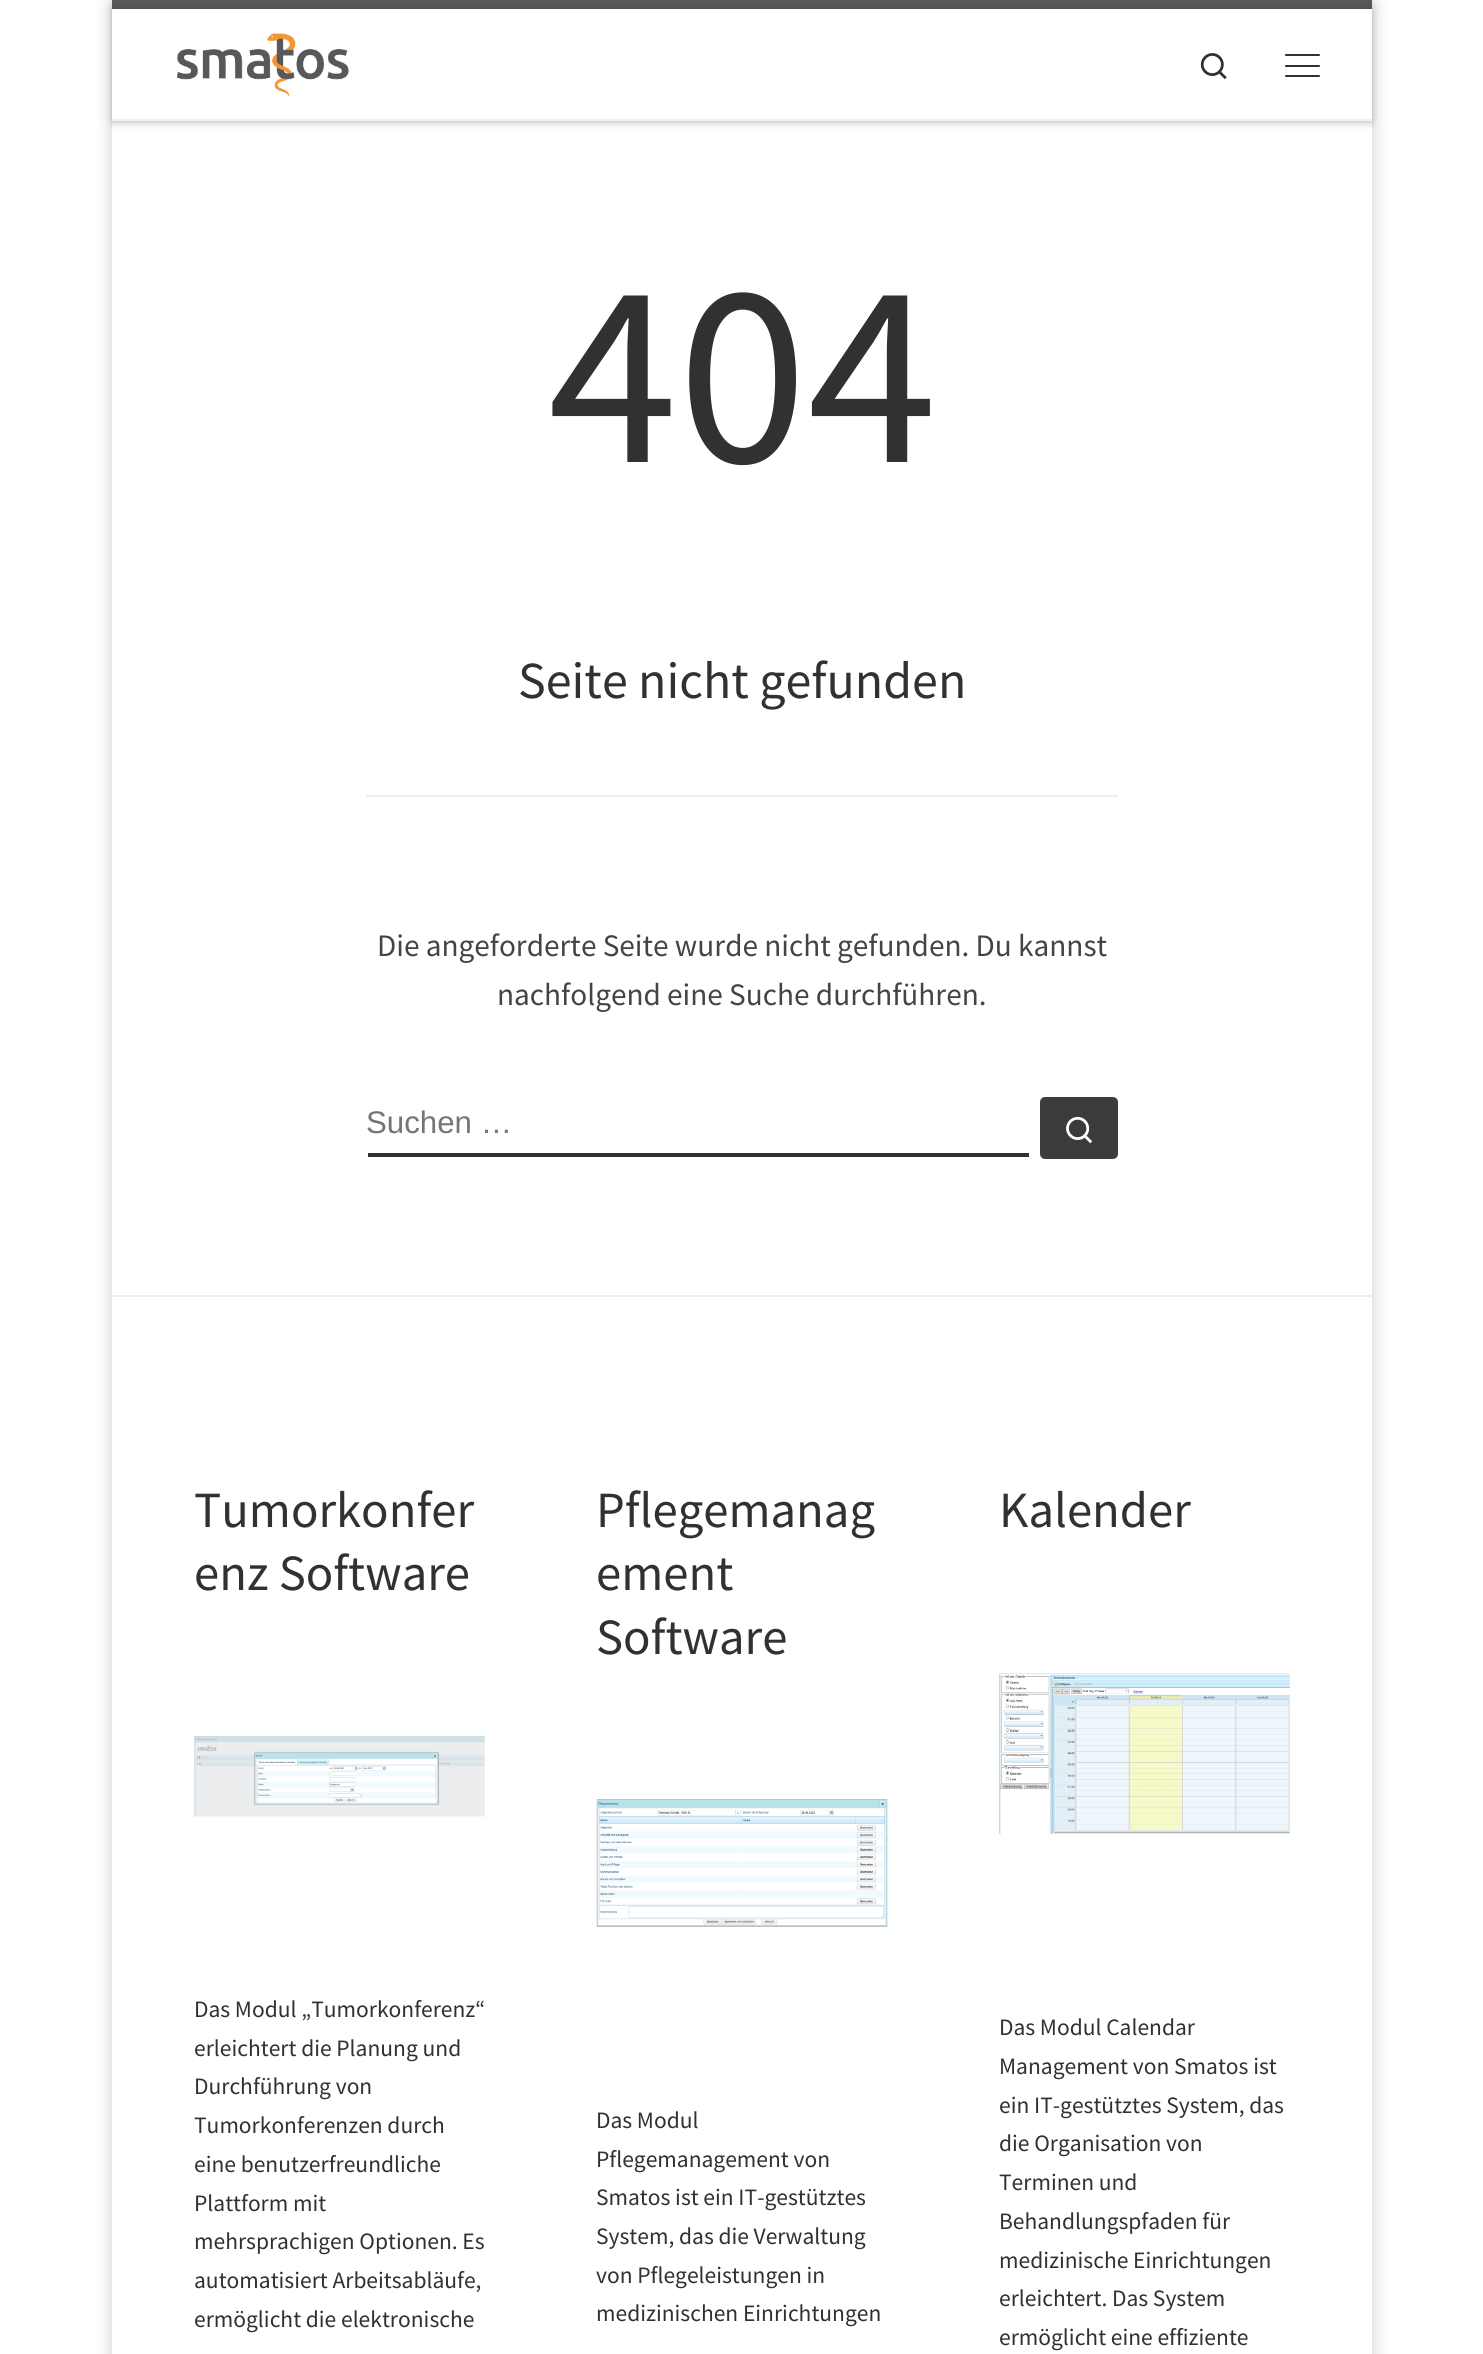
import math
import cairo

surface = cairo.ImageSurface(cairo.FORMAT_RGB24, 1483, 2354)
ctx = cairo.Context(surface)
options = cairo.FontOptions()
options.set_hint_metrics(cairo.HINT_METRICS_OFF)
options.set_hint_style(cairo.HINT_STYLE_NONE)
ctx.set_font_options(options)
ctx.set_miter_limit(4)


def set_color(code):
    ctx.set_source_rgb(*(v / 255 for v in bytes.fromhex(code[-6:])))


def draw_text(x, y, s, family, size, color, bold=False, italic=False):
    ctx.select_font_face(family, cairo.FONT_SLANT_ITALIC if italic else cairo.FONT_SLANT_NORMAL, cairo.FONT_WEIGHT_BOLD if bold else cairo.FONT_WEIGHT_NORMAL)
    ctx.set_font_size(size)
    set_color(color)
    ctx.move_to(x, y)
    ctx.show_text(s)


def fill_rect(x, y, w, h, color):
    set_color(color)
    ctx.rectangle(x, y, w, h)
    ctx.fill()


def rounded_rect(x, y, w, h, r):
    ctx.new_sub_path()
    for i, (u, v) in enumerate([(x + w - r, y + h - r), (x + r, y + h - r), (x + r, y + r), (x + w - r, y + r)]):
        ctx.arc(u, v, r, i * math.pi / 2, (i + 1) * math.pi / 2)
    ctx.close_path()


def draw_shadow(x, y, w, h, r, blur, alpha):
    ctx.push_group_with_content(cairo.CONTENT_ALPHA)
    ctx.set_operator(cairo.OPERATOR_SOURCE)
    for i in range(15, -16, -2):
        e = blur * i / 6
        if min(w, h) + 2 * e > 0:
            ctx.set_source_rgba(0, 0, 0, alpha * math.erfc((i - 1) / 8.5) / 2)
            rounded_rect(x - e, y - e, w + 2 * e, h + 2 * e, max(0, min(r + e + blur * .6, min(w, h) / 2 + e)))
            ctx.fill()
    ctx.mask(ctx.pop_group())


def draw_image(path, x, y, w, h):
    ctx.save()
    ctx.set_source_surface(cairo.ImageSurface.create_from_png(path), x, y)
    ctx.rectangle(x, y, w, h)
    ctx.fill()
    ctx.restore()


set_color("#ffffff")
ctx.paint()
ctx.save()
ctx.set_fill_rule(cairo.FILL_RULE_EVEN_ODD)
ctx.new_path()
ctx.move_to(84, 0)
ctx.line_to(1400, 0)
ctx.line_to(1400, 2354)
ctx.line_to(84, 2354)
ctx.close_path()
ctx.move_to(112, 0)
ctx.line_to(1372, 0)
ctx.line_to(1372, 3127)
ctx.line_to(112, 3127)
ctx.close_path()
ctx.clip()
set_color("#000000")
draw_shadow(112, 0, 1260, 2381, 0, 9, 0.2)
ctx.restore()
set_color("#666666")
draw_shadow(112, 4, 1260, 122, 0, 2, 0.08)
fill_rect(112, 0, 1260, 9, "#5a5a5a")
fill_rect(112, 121, 1260, 2, "#efefef")
set_color("#000000")
draw_shadow(112, 9, 1260, 112, 0, 4.5, 0.2)
fill_rect(112, 9, 1260, 110, "#ffffff")
draw_image("assets/img1.png", 176, 33, 173, 64)
draw_image("assets/img2.png", 1200, 53, 27, 27)
set_color("#313131")
rounded_rect(1285, 54, 35, 2, 1)
ctx.fill()
rounded_rect(1285, 65, 35, 2, 1)
ctx.fill()
rounded_rect(1285, 75, 35, 2, 1)
ctx.fill()
fill_rect(112, 119, 1260, 2, "#f0f0f0")
draw_text(548, 462, "404", "Source Sans Pro", 261, "#303133")
draw_text(518, 698, "Seite nicht gefunden", "Source Sans Pro", 52, "#303133")
fill_rect(366, 795, 752, 2, "#eceeef")
draw_text(377, 956, "Die angeforderte Seite wurde nicht gefunden. Du kannst", "Source Sans Pro", 31.25, "#444444")
draw_text(497, 1005, "nachfolgend eine Suche durchführen.", "Source Sans Pro", 31.25, "#444444")
fill_rect(368, 1153, 661, 4, "#313131")
draw_text(366, 1133, "Suchen …", "Liberation Sans", 31.25, "#757575")
set_color("#3b3b3b")
rounded_rect(1042, 1099, 74, 58, 3)
ctx.fill_preserve()
ctx.set_line_width(4)
ctx.stroke()
draw_image("assets/img3.png", 1066, 1116, 27, 28)
fill_rect(112, 1295, 1260, 2, "#eceeef")
draw_text(194, 1527, "Tumorkonfer", "Source Sans Pro", 50.75, "#303133")
draw_text(194, 1590, "enz Software", "Source Sans Pro", 50.75, "#303133")
draw_image("assets/img4.png", 194, 1736, 291, 81)
draw_text(194, 2017, "Das Modul „Tumorkonferenz“", "Source Sans Pro", 23.5, "#303133")
draw_text(194, 2056, "erleichtert die Planung und", "Source Sans Pro", 23.5, "#303133")
draw_text(194, 2094, "Durchführung von", "Source Sans Pro", 23.5, "#303133")
draw_text(194, 2133, "Tumorkonferenzen durch", "Source Sans Pro", 23.5, "#303133")
draw_text(194, 2172, "eine benutzerfreundliche", "Source Sans Pro", 23.5, "#303133")
draw_text(194, 2211, "Plattform mit", "Source Sans Pro", 23.5, "#303133")
draw_text(194, 2249, "mehrsprachigen Optionen. Es", "Source Sans Pro", 23.5, "#303133")
draw_text(194, 2288, "automatisiert Arbeitsabläufe,", "Source Sans Pro", 23.5, "#303133")
draw_text(194, 2327, "ermöglicht die elektronische", "Source Sans Pro", 23.5, "#303133")
draw_text(596, 1527, "Pflegemanag", "Source Sans Pro", 50.75, "#303133")
draw_text(596, 1590, "ement", "Source Sans Pro", 50.75, "#303133")
draw_text(596, 1654, "Software", "Source Sans Pro", 50.75, "#303133")
draw_image("assets/img5.png", 596, 1799, 292, 128)
draw_text(596, 2128, "Das Modul", "Source Sans Pro", 23.5, "#303133")
draw_text(596, 2167, "Pflegemanagement von", "Source Sans Pro", 23.5, "#303133")
draw_text(596, 2205, "Smatos ist ein IT-gestütztes", "Source Sans Pro", 23.5, "#303133")
draw_text(596, 2244, "System, das die Verwaltung", "Source Sans Pro", 23.5, "#303133")
draw_text(596, 2283, "von Pflegeleistungen in", "Source Sans Pro", 23.5, "#303133")
draw_text(596, 2321, "medizinischen Einrichtungen", "Source Sans Pro", 23.5, "#303133")
draw_text(999, 1527, "Kalender", "Source Sans Pro", 50.75, "#303133")
draw_image("assets/img6.png", 999, 1673, 291, 161)
draw_text(999, 2035, "Das Modul Calendar", "Source Sans Pro", 23.5, "#303133")
draw_text(999, 2074, "Management von Smatos ist", "Source Sans Pro", 23.5, "#303133")
draw_text(999, 2113, "ein IT-gestütztes System, das", "Source Sans Pro", 23.5, "#303133")
draw_text(999, 2151, "die Organisation von", "Source Sans Pro", 23.5, "#303133")
draw_text(999, 2190, "Terminen und", "Source Sans Pro", 23.5, "#303133")
draw_text(999, 2229, "Behandlungspfaden für", "Source Sans Pro", 23.5, "#303133")
draw_text(999, 2268, "medizinische Einrichtungen", "Source Sans Pro", 23.5, "#303133")
draw_text(999, 2306, "erleichtert. Das System", "Source Sans Pro", 23.5, "#303133")
draw_text(999, 2345, "ermöglicht eine effiziente", "Source Sans Pro", 23.5, "#303133")
surface.write_to_png("output.png")
